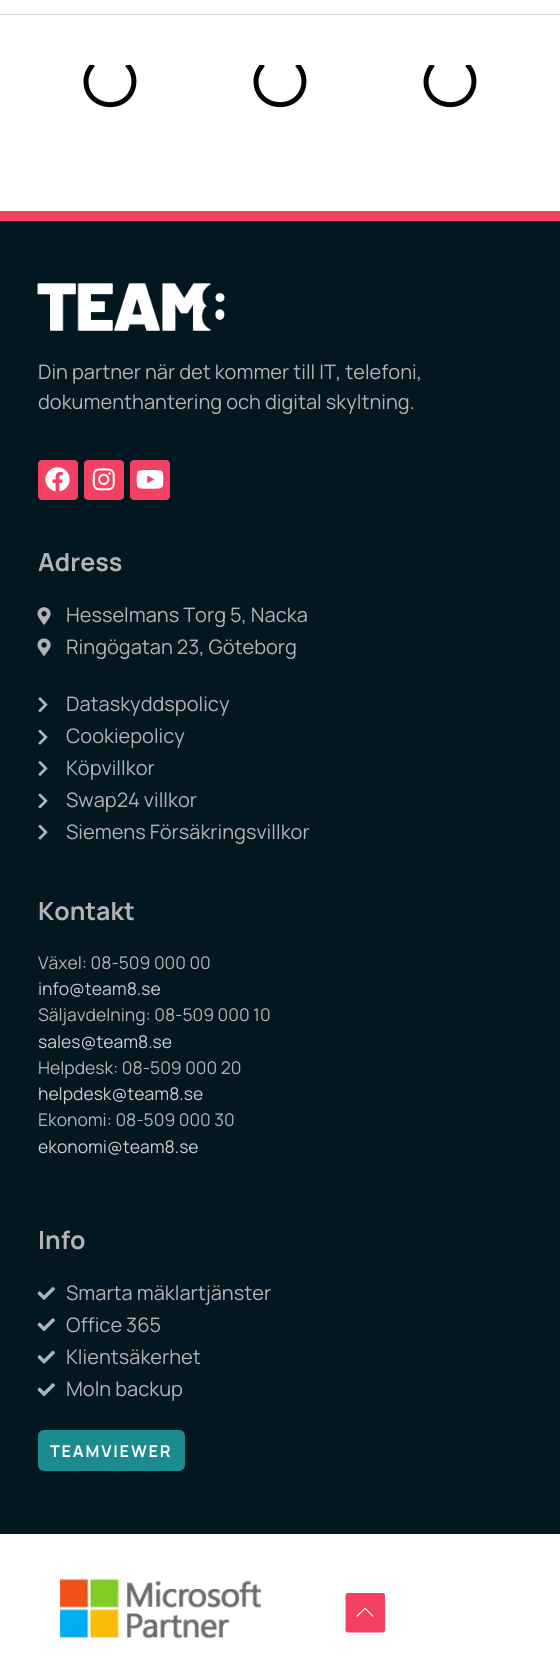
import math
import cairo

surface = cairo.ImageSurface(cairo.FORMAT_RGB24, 560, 1669)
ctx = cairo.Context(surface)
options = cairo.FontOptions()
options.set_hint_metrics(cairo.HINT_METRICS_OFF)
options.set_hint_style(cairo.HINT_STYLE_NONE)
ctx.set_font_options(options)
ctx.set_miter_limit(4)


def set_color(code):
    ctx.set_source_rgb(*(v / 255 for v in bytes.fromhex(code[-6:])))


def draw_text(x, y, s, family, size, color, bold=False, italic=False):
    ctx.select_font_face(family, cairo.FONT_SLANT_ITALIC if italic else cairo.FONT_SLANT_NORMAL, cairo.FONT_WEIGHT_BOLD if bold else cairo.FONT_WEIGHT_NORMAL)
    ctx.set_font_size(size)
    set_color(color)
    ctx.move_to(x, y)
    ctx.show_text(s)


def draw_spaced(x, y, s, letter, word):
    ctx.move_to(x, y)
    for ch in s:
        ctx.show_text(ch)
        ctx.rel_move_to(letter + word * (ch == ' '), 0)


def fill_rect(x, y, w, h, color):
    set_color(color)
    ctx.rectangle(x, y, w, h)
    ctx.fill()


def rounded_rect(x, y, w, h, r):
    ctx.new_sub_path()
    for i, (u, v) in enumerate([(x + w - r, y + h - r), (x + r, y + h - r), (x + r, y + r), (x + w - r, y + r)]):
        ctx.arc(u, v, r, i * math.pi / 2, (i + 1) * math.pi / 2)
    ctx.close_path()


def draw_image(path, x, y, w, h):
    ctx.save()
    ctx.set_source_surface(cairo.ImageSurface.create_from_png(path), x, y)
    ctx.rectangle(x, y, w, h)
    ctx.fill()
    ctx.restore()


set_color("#ffffff")
ctx.paint()
fill_rect(0, 14, 560, 1, "#d6d6d6")
ctx.save()
ctx.rectangle(25, 65, 510, 96)
ctx.clip()
ctx.new_path()
ctx.move_to(127, 64.5)
ctx.curve_to(132.5, 70, 135, 78, 133.5, 86)
ctx.curve_to(127.5, 113.5, 86, 109.5, 86, 81)
ctx.curve_to(86, 75, 89, 69, 93, 64.5)
set_color("#000000")
ctx.set_line_width(5)
ctx.stroke()
ctx.new_path()
ctx.move_to(297, 64.5)
ctx.curve_to(302.5, 70, 305, 78, 303.5, 86)
ctx.curve_to(297.5, 113.5, 256, 109.5, 256, 81)
ctx.curve_to(256, 75, 259, 69, 263, 64.5)
ctx.stroke()
ctx.new_path()
ctx.move_to(467, 64.5)
ctx.curve_to(472.5, 70, 475, 78, 473.5, 86)
ctx.curve_to(467.5, 113.5, 426, 109.5, 426, 81)
ctx.curve_to(426.5, 75, 429, 69, 433, 64.5)
ctx.stroke()
ctx.restore()
fill_rect(0, 221, 560, 1313, "#031721")
fill_rect(0, 211, 560, 10, "#f24162")
draw_image("assets/img1.png", 37, 283, 188, 48)
draw_text(38, 379, "Din partner när det kommer till IT, telefoni,", "Manrope", 20, "#b3b3b3")
draw_text(38, 409, "dokumenthantering och digital skyltning.", "Manrope", 20, "#b3b3b3")
set_color("#f24162")
rounded_rect(38, 460, 40, 40, 4)
ctx.fill()
draw_image("assets/img2.png", 45, 467, 25, 25)
rounded_rect(84, 460, 40, 40, 4)
ctx.fill()
draw_image("assets/img3.png", 92, 468, 23, 23)
rounded_rect(130, 460, 40, 40, 4)
ctx.fill()
draw_image("assets/img4.png", 136, 470, 28, 19)
draw_text(38, 571, "Adress", "Manrope", 25, "#b3b3b3", bold=True)
draw_image("assets/img5.png", 37, 607, 14, 18)
draw_text(66, 622, "Hesselmans Torg 5, Nacka", "Manrope", 20, "#b3b3b3")
draw_image("assets/img6.png", 37, 638, 14, 18)
draw_text(66, 654, "Ringögatan 23, Göteborg", "Manrope", 20, "#b3b3b3")
draw_image("assets/img7.png", 38, 697, 10, 16)
draw_text(66, 711, "Dataskyddspolicy", "Manrope", 20, "#b3b3b3")
draw_image("assets/img8.png", 38, 729, 10, 16)
draw_text(66, 743, "Cookiepolicy", "Manrope", 20, "#b3b3b3")
draw_image("assets/img9.png", 38, 761, 10, 15)
draw_text(66, 775, "Köpvillkor", "Manrope", 20, "#b3b3b3")
draw_image("assets/img10.png", 38, 793, 10, 16)
draw_text(66, 807, "Swap24 villkor", "Manrope", 20, "#b3b3b3")
draw_image("assets/img8.png", 38, 824, 10, 16)
draw_text(66, 839, "Siemens Försäkringsvillkor", "Manrope", 20, "#b3b3b3")
draw_text(38, 920, "Kontakt", "Manrope", 25, "#b3b3b3", bold=True)
draw_text(38, 969, "Växel: 08-509 000 00", "Manrope", 17.5, "#b3b3b3")
draw_text(38, 995, "info@team8.se", "Manrope", 17.5, "#cccccc")
draw_text(38, 1021, "Säljavdelning: 08-509 000 10", "Manrope", 17.5, "#b3b3b3")
draw_text(38, 1048, "sales@team8.se", "Manrope", 17.5, "#cccccc")
draw_text(38, 1074, "Helpdesk: 08-509 000 20", "Manrope", 17.5, "#b3b3b3")
draw_text(38, 1100, "helpdesk@team8.se", "Manrope", 17.5, "#cccccc")
draw_text(38, 1126, "Ekonomi: 08-509 000 30", "Manrope", 17.5, "#b3b3b3")
draw_text(38, 1153, "ekonomi@team8.se", "Manrope", 17.5, "#cccccc")
draw_text(38, 1249, "Info", "Manrope", 25, "#b3b3b3", bold=True)
draw_image("assets/img11.png", 37, 1287, 18, 13)
draw_text(66, 1300, "Smarta mäklartjänster", "Manrope", 20, "#b3b3b3")
draw_image("assets/img12.png", 37, 1318, 18, 14)
draw_text(66, 1332, "Office 365", "Manrope", 20, "#b3b3b3")
draw_image("assets/img13.png", 37, 1350, 18, 14)
draw_text(66, 1364, "Klientsäkerhet", "Manrope", 20, "#b3b3b3")
draw_image("assets/img12.png", 37, 1383, 18, 14)
draw_text(66, 1396, "Moln backup", "Manrope", 20, "#b3b3b3")
set_color("#1b8b8f")
rounded_rect(38, 1430, 147, 41, 6)
ctx.fill()
ctx.select_font_face("Manrope", cairo.FONT_SLANT_NORMAL, cairo.FONT_WEIGHT_BOLD)
ctx.set_font_size(16.25)
set_color("#ffffff")
draw_spaced(50, 1457, "TEAMVIEWER", 1.75, 0)
draw_image("assets/img14.png", 60, 1578, 202, 61)
set_color("#f24162")
ctx.new_path()
ctx.move_to(382.5, 1632.5)
ctx.line_to(348, 1632.5)
ctx.curve_to(346.5, 1632.5, 345.5, 1631.5, 345.5, 1630)
ctx.line_to(345.5, 1595.5)
ctx.curve_to(345.5, 1594, 346.5, 1593, 348, 1593)
ctx.line_to(382.5, 1593)
ctx.curve_to(384, 1593, 385, 1594, 385, 1595.5)
ctx.line_to(385, 1630)
ctx.curve_to(385, 1631.5, 384, 1632.5, 382.5, 1632.5)
ctx.close_path()
ctx.fill()
draw_image("assets/img15.png", 356, 1607, 18, 10)
surface.write_to_png("output.png")
